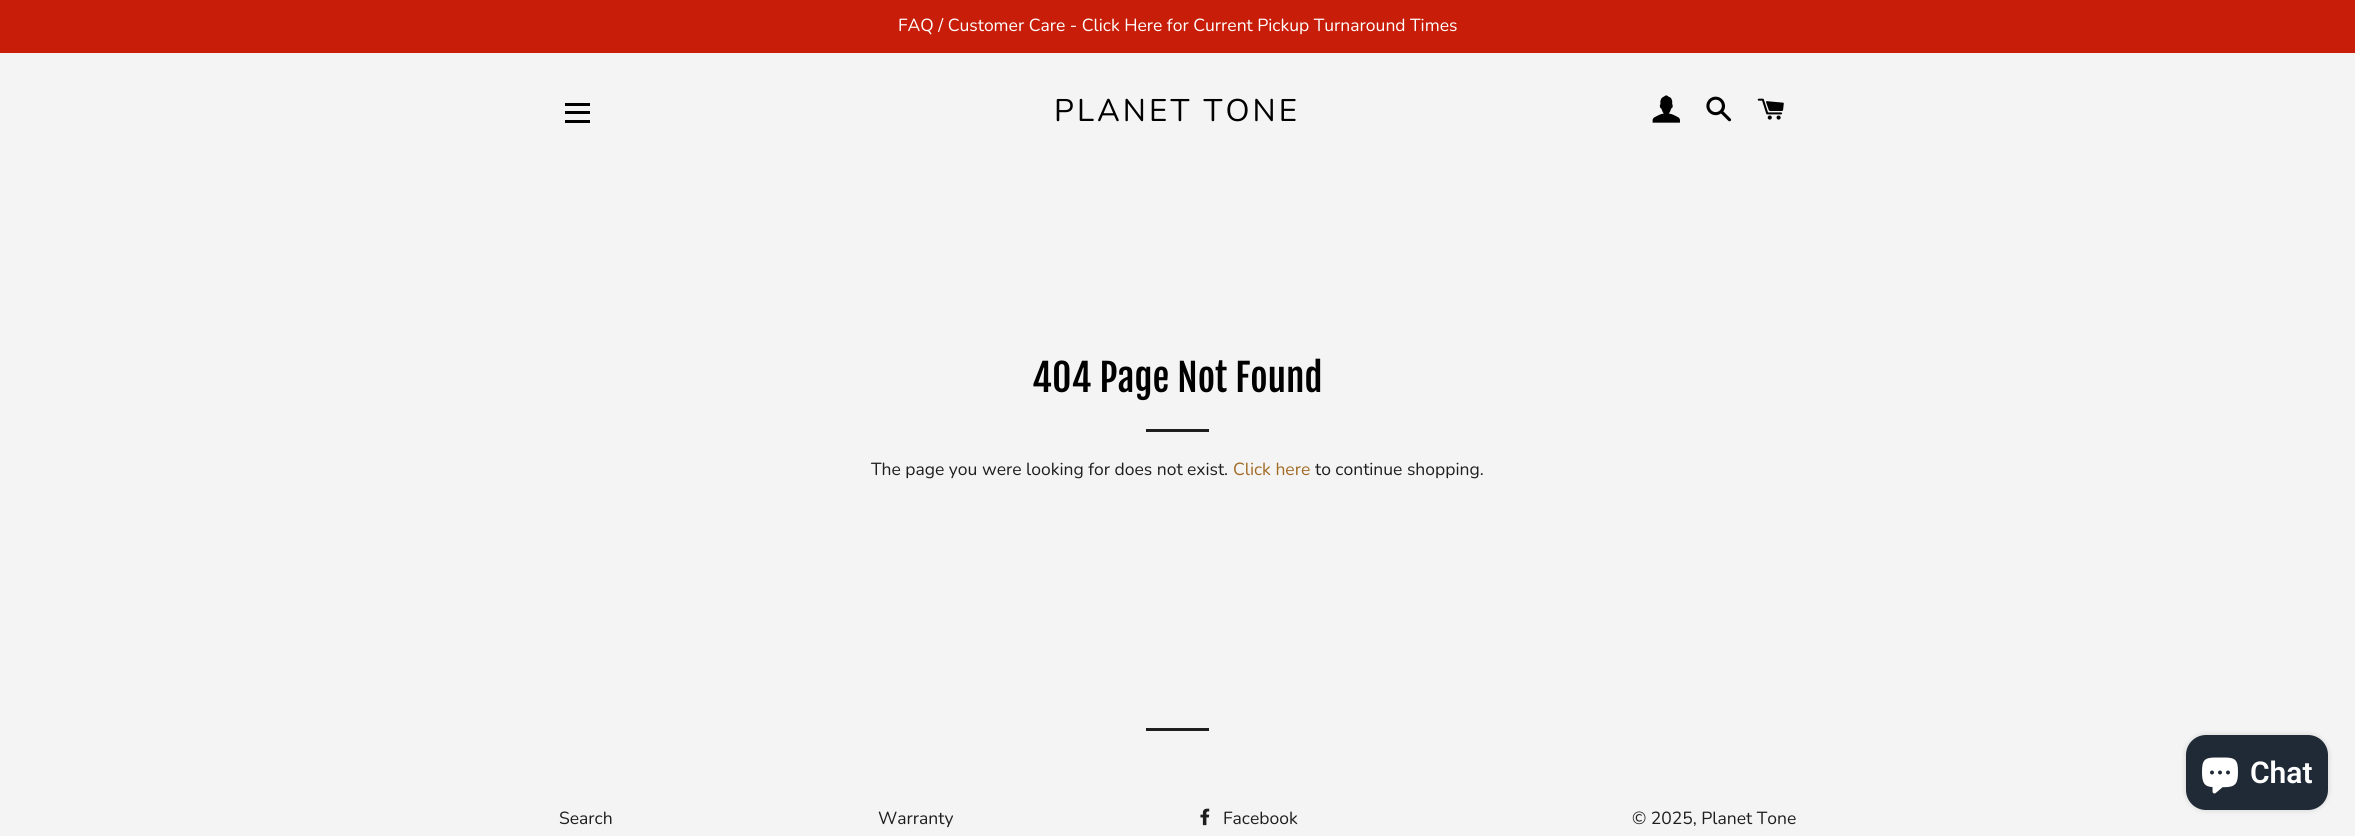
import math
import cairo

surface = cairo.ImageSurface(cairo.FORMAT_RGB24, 2355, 836)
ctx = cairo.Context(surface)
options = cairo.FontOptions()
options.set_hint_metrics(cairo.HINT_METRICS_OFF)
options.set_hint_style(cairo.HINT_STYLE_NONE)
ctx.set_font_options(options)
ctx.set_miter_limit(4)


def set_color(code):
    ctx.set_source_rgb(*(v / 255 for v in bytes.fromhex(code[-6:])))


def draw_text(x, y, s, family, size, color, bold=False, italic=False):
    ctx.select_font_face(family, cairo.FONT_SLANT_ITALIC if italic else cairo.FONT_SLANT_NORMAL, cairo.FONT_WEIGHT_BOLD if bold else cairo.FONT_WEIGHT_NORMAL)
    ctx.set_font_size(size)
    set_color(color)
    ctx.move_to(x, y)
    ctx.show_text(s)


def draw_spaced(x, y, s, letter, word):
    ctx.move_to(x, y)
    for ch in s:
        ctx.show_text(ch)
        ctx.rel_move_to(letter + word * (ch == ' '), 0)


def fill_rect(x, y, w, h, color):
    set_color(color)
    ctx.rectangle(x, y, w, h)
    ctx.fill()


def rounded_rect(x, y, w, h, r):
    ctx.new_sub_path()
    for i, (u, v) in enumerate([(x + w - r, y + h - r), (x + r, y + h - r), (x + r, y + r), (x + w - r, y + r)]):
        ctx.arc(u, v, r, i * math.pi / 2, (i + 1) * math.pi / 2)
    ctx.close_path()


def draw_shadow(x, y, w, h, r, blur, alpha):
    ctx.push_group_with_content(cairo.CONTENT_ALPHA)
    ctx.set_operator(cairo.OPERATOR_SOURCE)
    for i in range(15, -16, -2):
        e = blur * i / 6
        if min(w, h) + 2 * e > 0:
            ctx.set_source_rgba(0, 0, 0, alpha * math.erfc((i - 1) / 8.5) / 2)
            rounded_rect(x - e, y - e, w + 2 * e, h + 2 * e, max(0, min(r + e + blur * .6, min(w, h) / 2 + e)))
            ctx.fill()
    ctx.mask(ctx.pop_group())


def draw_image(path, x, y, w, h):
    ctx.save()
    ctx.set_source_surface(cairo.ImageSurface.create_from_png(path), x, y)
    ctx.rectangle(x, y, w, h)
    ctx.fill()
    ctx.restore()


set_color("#f4f4f4")
ctx.paint()
fill_rect(0, 0, 2355, 53, "#c81e09")
draw_text(898, 31, "FAQ / Customer Care - Click Here for Current Pickup Turnaround Times", "Nunito", 17.5, "#ffffff")
fill_rect(565, 103, 25, 3, "#000000")
fill_rect(565, 111, 25, 3, "#000000")
fill_rect(565, 120, 25, 3, "#000000")
ctx.set_font_size(31.25)
draw_spaced(1054, 121, "PLANET TONE", 3.1, 0)
draw_image("assets/img1.png", 1652, 95, 28, 28)
draw_image("assets/img2.png", 1706, 96, 26, 26)
draw_image("assets/img3.png", 1757, 98, 27, 22)
draw_text(1032, 392, "404 Page Not Found", "Fjalla One", 37.5, "#000000")
fill_rect(1146, 429, 63, 3, "#1e1e1e")
draw_text(871, 475, "The page you were looking for does not exist.", "Nunito", 17.5, "#1e1e1e")
draw_text(1233, 475, "Click here", "Nunito", 17.5, "#a26b25")
draw_text(1315, 475, "to continue shopping.", "Nunito", 17.5, "#1e1e1e")
fill_rect(1146, 728, 63, 3, "#1e1e1e")
draw_text(559, 824, "Search", "Nunito", 17.5, "#1e1e1e")
draw_text(878, 824, "Warranty", "Nunito", 17.5, "#1e1e1e")
draw_image("assets/img4.png", 1200, 808, 10, 18)
draw_text(1223, 824, "Facebook", "Nunito", 17.5, "#1e1e1e")
draw_text(1632, 824, "© 2025, Planet Tone", "Nunito", 17.5, "#1e1e1e")
set_color("#000000")
draw_shadow(2186, 735, 142, 75, 20, 3, 0.15)
set_color("#202a36")
rounded_rect(2186, 735, 142, 75, 20)
ctx.fill()
draw_image("assets/img5.png", 2202, 757, 36, 37)
draw_text(2250, 783, "Chat", "Roboto SemiBold", 30, "#ffffff")
surface.write_to_png("output.png")
